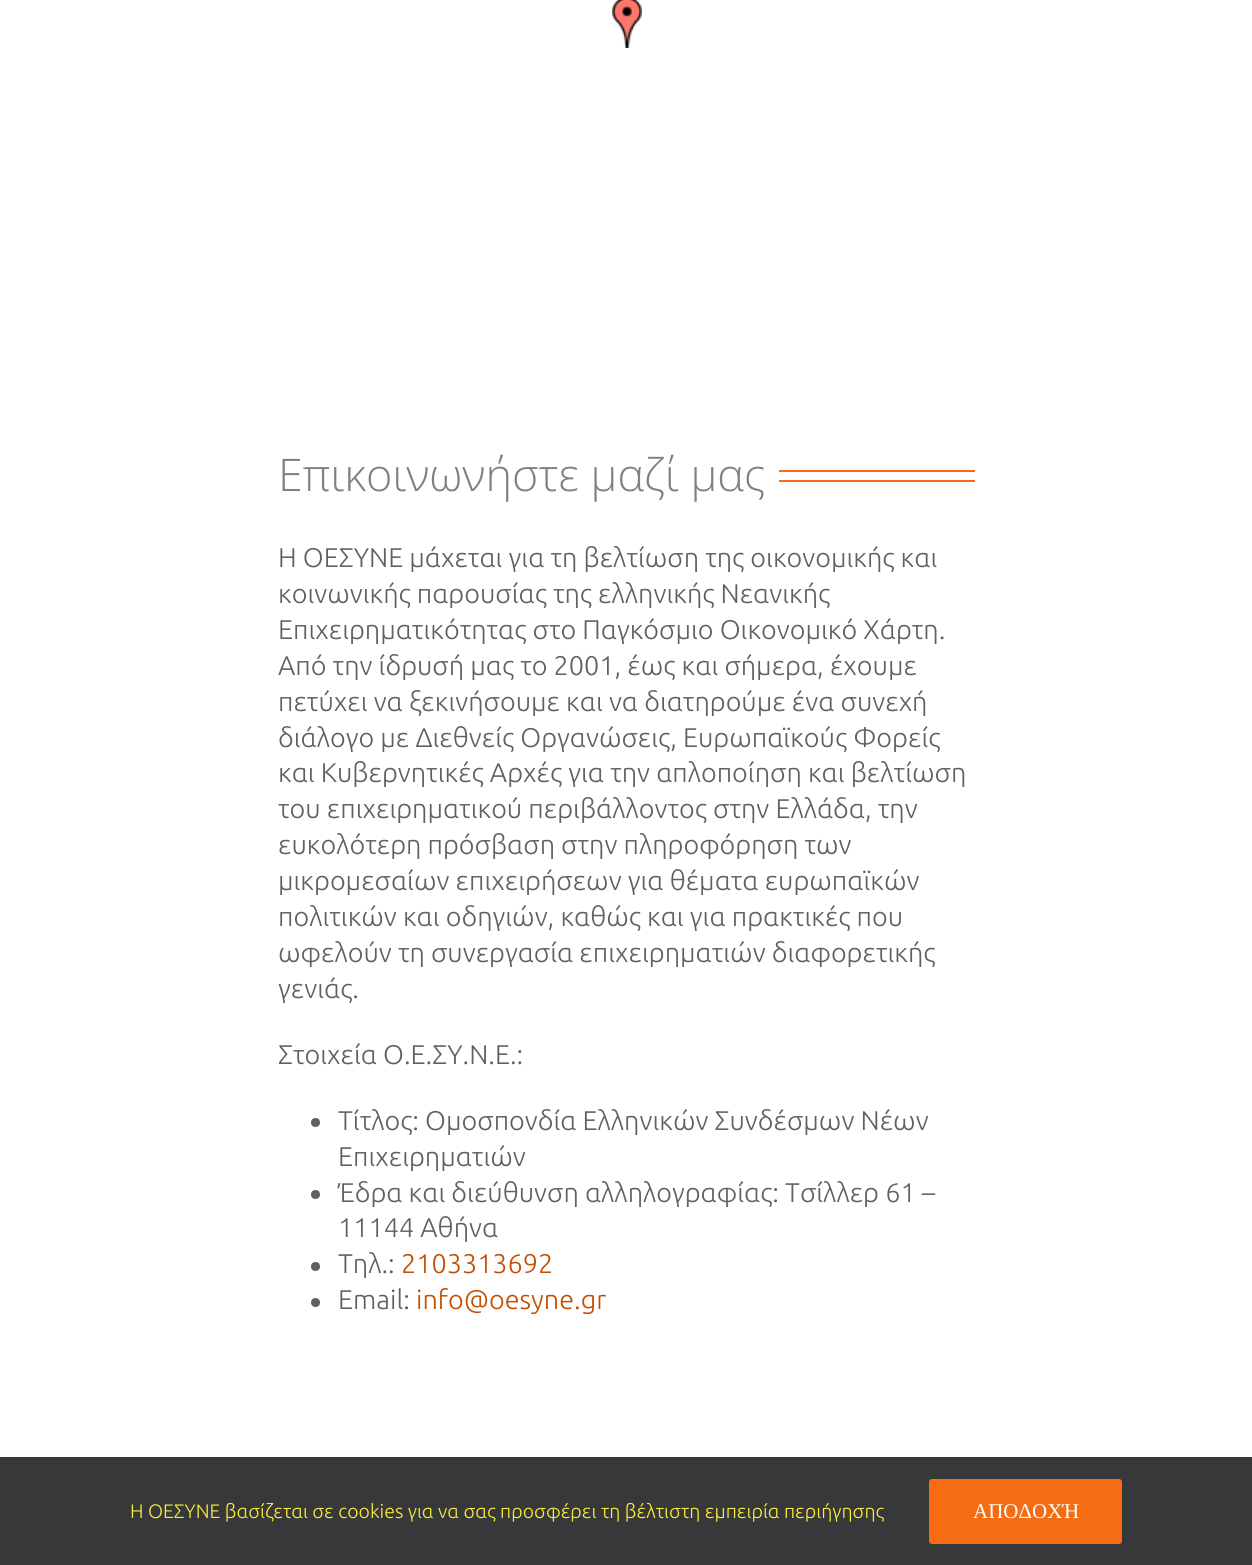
import math
import cairo

surface = cairo.ImageSurface(cairo.FORMAT_RGB24, 1252, 1565)
ctx = cairo.Context(surface)
options = cairo.FontOptions()
options.set_hint_metrics(cairo.HINT_METRICS_OFF)
options.set_hint_style(cairo.HINT_STYLE_NONE)
ctx.set_font_options(options)
ctx.set_miter_limit(4)


def set_color(code):
    ctx.set_source_rgb(*(v / 255 for v in bytes.fromhex(code[-6:])))


def draw_text(x, y, s, family, size, color, bold=False, italic=False):
    ctx.select_font_face(family, cairo.FONT_SLANT_ITALIC if italic else cairo.FONT_SLANT_NORMAL, cairo.FONT_WEIGHT_BOLD if bold else cairo.FONT_WEIGHT_NORMAL)
    ctx.set_font_size(size)
    set_color(color)
    ctx.move_to(x, y)
    ctx.show_text(s)


def fill_rect(x, y, w, h, color):
    set_color(color)
    ctx.rectangle(x, y, w, h)
    ctx.fill()


def rounded_rect(x, y, w, h, r):
    ctx.new_sub_path()
    for i, (u, v) in enumerate([(x + w - r, y + h - r), (x + r, y + h - r), (x + r, y + r), (x + w - r, y + r)]):
        ctx.arc(u, v, r, i * math.pi / 2, (i + 1) * math.pi / 2)
    ctx.close_path()


def draw_image(path, x, y, w, h):
    ctx.save()
    ctx.set_source_surface(cairo.ImageSurface.create_from_png(path), x, y)
    ctx.rectangle(x, y, w, h)
    ctx.fill()
    ctx.restore()


set_color("#ffffff")
ctx.paint()
draw_image("assets/img1.png", 612, 0, 30, 48)
draw_text(278, 491, "Επικοινωνήστε μαζί μας", "Open Sans Light", 45, "#808080")
fill_rect(779, 470, 196, 2, "#f56c13")
fill_rect(779, 480, 196, 2, "#f56c13")
draw_text(278, 567, "Η ΟΕΣΥΝΕ μάχεται για τη βελτίωση της οικονομικής και", "Ubuntu Light", 27, "#606060")
draw_text(278, 603, "κοινωνικής παρουσίας της ελληνικής Νεανικής", "Ubuntu Light", 27, "#606060")
draw_text(278, 639, "Επιχειρηματικότητας στο Παγκόσμιο Οικονομικό Χάρτη.", "Ubuntu Light", 27, "#606060")
draw_text(278, 675, "Από την ίδρυσή μας το 2001, έως και σήμερα, έχουμε", "Ubuntu Light", 27, "#606060")
draw_text(278, 711, "πετύχει να ξεκινήσουμε και να διατηρούμε ένα συνεχή", "Ubuntu Light", 27, "#606060")
draw_text(278, 747, "διάλογο με Διεθνείς Οργανώσεις, Ευρωπαϊκούς Φορείς", "Ubuntu Light", 27, "#606060")
draw_text(278, 782, "και Κυβερνητικές Αρχές για την απλοποίηση και βελτίωση", "Ubuntu Light", 27, "#606060")
draw_text(278, 818, "του επιχειρηματικού περιβάλλοντος στην Ελλάδα, την", "Ubuntu Light", 27, "#606060")
draw_text(278, 854, "ευκολότερη πρόσβαση στην πληροφόρηση των", "Ubuntu Light", 27, "#606060")
draw_text(278, 890, "μικρομεσαίων επιχειρήσεων για θέματα ευρωπαϊκών", "Ubuntu Light", 27, "#606060")
draw_text(278, 926, "πολιτικών και οδηγιών, καθώς και για πρακτικές που", "Ubuntu Light", 27, "#606060")
draw_text(278, 962, "ωφελούν τη συνεργασία επιχειρηματιών διαφορετικής", "Ubuntu Light", 27, "#606060")
draw_text(278, 998, "γενιάς.", "Ubuntu Light", 27, "#606060")
draw_text(278, 1064, "Στοιχεία Ο.Ε.ΣΥ.Ν.Ε.:", "Ubuntu Light", 27, "#606060")
ctx.new_path()
ctx.arc(315.5, 1122.5, 4.5, 0, 2 * math.pi)
ctx.fill()
draw_text(338, 1130, "Τίτλος: Ομοσπονδία Ελληνικών Συνδέσμων Νέων", "Ubuntu Light", 27, "#606060")
draw_text(338, 1166, "Επιχειρηματιών", "Ubuntu Light", 27, "#606060")
ctx.new_path()
ctx.arc(315.5, 1194.5, 4.5, 0, 2 * math.pi)
ctx.fill()
draw_text(338, 1202, "Έδρα και διεύθυνση αλληλογραφίας: Τσίλλερ 61 –", "Ubuntu Light", 27, "#606060")
draw_text(338, 1237, "11144 Αθήνα", "Ubuntu Light", 27, "#606060")
ctx.new_path()
ctx.arc(315.5, 1266.5, 4.5, 0, 2 * math.pi)
ctx.fill()
draw_text(338, 1273, "Τηλ.:", "Ubuntu Light", 27, "#606060")
draw_text(401, 1273, "2103313692", "Ubuntu Light", 27, "#c34d00")
set_color("#606060")
ctx.new_path()
ctx.arc(315.5, 1302.5, 4.5, 0, 2 * math.pi)
ctx.fill()
draw_text(338, 1309, "Εmail:", "Ubuntu Light", 27, "#606060")
draw_text(416, 1309, "info@oesyne.gr", "Ubuntu Light", 27, "#c34d00")
fill_rect(0, 1457, 1252, 108, "#363839")
draw_text(130, 1518, "Η ΟΕΣΥΝΕ βασίζεται σε cookies για να σας προσφέρει τη βέλτιστη εμπειρία περιήγησης", "Ubuntu Light", 19.5, "#fcec3a")
set_color("#f56c13")
rounded_rect(929, 1479, 193, 65, 3)
ctx.fill()
draw_text(973, 1518, "ΑΠΟΔΟΧΉ", "Liberation Serif", 21, "#ffffff")
surface.write_to_png("output.png")
